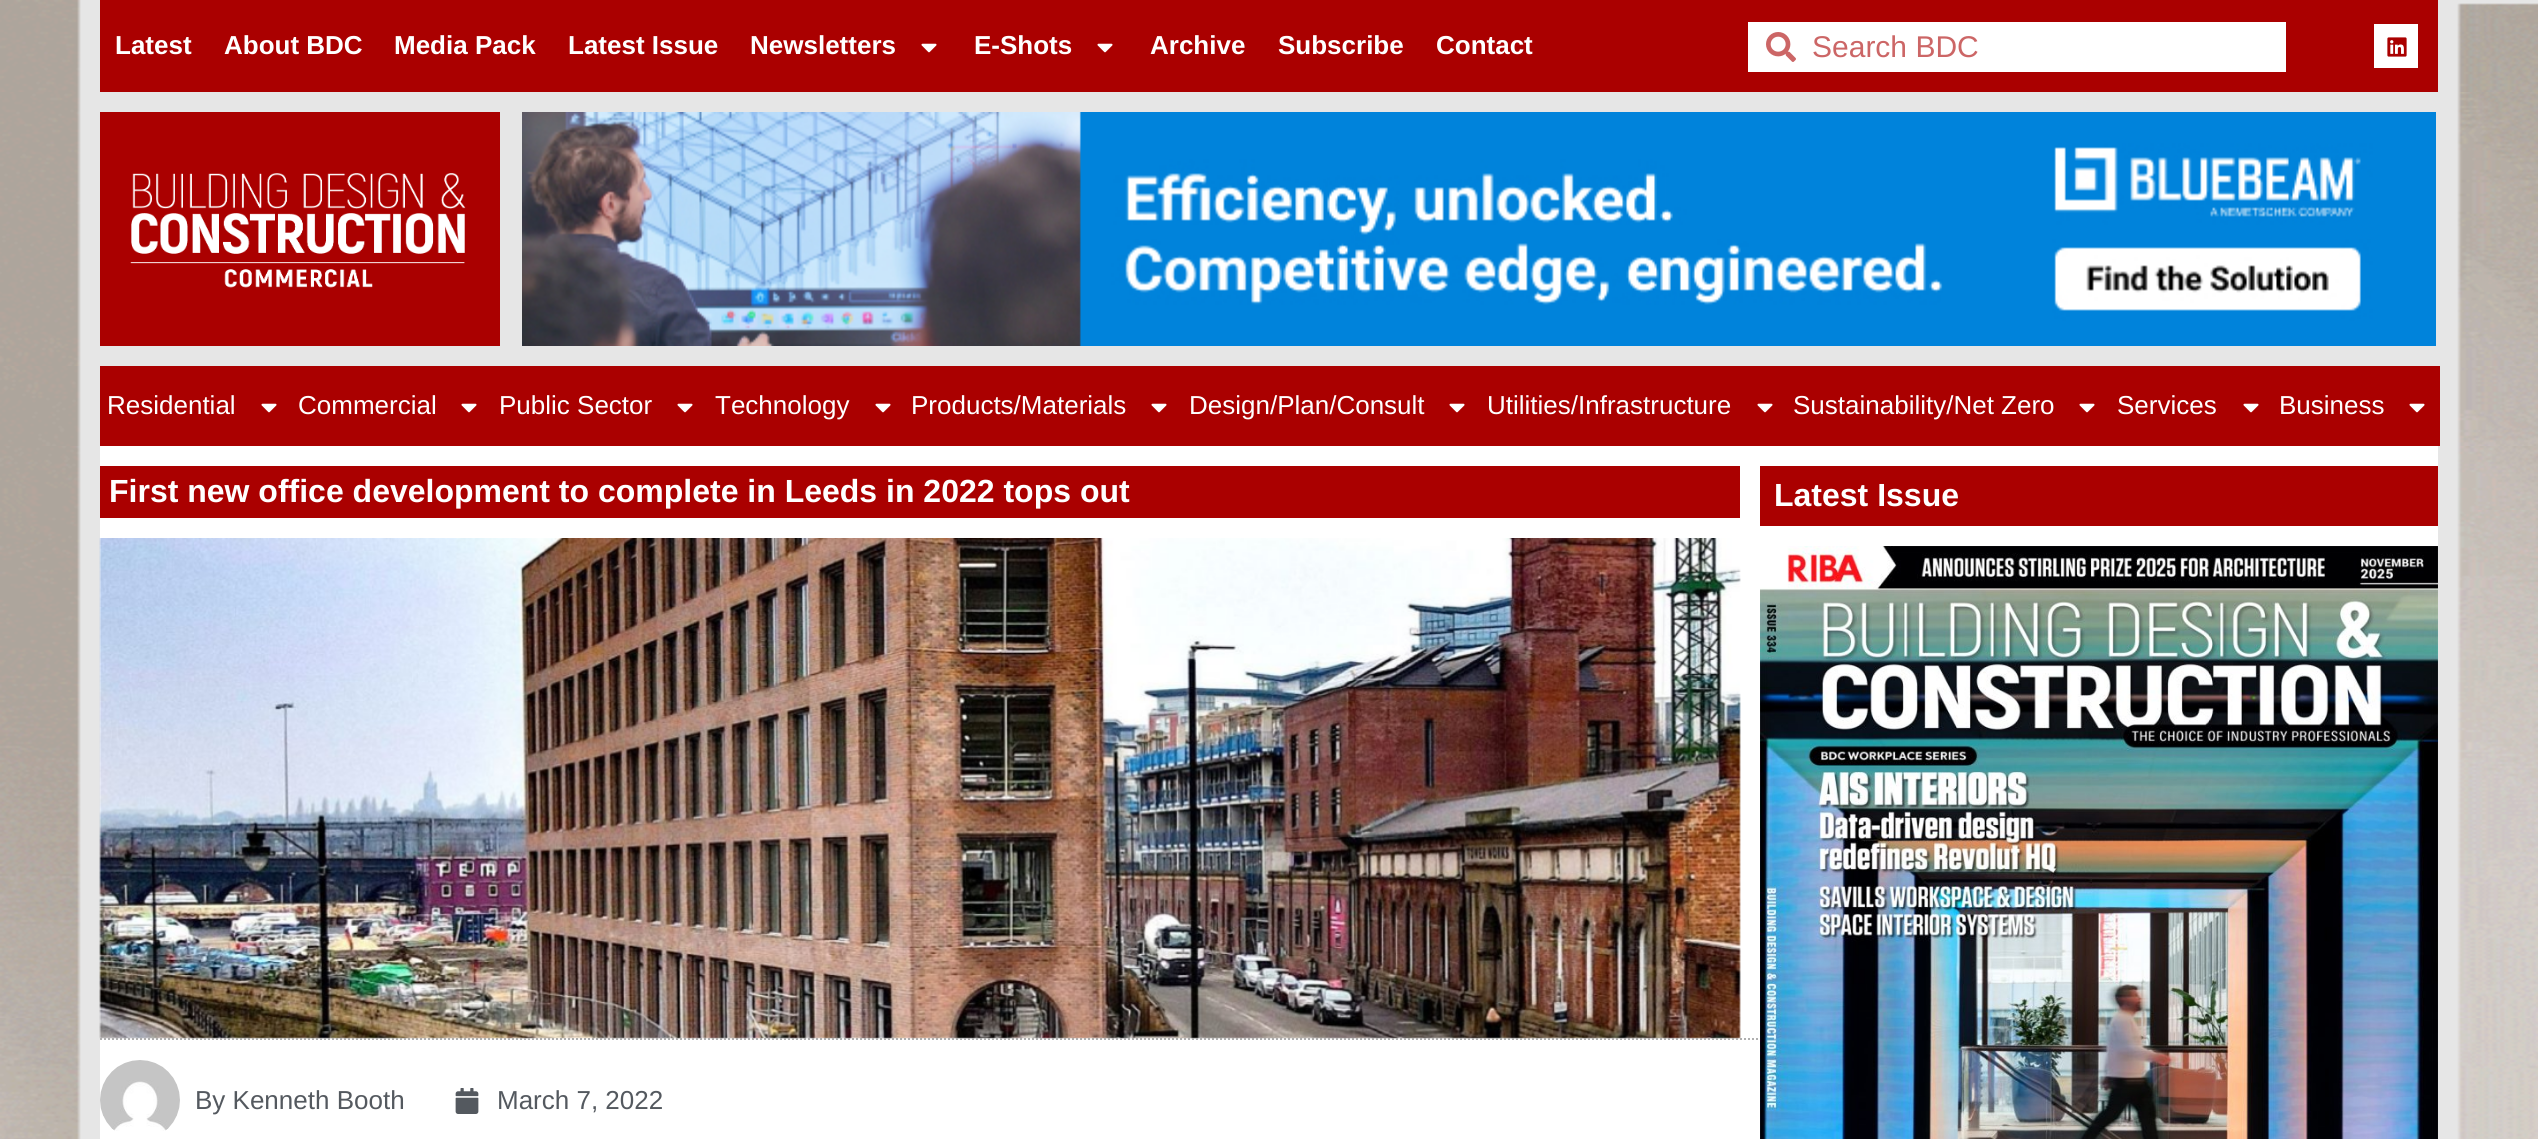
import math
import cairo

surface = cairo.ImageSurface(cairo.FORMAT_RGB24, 2538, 1139)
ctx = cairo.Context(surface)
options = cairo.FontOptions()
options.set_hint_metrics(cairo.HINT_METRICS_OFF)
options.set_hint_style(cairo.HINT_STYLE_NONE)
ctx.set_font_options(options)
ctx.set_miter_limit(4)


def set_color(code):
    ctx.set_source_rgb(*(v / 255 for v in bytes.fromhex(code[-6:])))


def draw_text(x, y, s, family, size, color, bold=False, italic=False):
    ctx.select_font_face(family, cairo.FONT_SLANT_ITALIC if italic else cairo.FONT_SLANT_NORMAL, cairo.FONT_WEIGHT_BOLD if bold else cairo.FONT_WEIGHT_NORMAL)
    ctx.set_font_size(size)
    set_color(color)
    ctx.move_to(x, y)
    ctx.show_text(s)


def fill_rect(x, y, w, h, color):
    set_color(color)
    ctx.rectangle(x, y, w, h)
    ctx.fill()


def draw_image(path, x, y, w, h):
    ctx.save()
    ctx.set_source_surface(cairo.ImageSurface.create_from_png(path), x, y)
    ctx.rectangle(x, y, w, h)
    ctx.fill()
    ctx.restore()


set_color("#e6e6e6")
ctx.paint()
draw_image("assets/img1.png", 0, 0, 2538, 92)
fill_rect(100, 0, 2338, 92, "#aa0000")
draw_text(115, 54, "Latest", "Liberation Sans", 26, "#ffffff", bold=True)
draw_text(224, 54, "About BDC", "Liberation Sans", 26, "#ffffff", bold=True)
draw_text(394, 54, "Media Pack", "Liberation Sans", 26, "#ffffff", bold=True)
draw_text(568, 54, "Latest Issue", "Liberation Sans", 26, "#ffffff", bold=True)
draw_text(750, 54, "Newsletters", "Liberation Sans", 26, "#ffffff", bold=True)
draw_image("assets/img2.png", 921, 43, 16, 10)
draw_text(974, 54, "E-Shots", "Liberation Sans", 26, "#ffffff", bold=True)
draw_image("assets/img2.png", 1097, 43, 16, 10)
draw_text(1150, 54, "Archive", "Liberation Sans", 26, "#ffffff", bold=True)
draw_text(1278, 54, "Subscribe", "Liberation Sans", 26, "#ffffff", bold=True)
draw_text(1436, 54, "Contact", "Liberation Sans", 26, "#ffffff", bold=True)
fill_rect(1748, 22, 538, 50, "#ffffff")
draw_image("assets/img3.png", 1766, 32, 30, 30)
draw_text(1812, 57, "Search BDC", "Liberation Sans", 30, "#cc6666")
fill_rect(2374, 24, 44, 44, "#ffffff")
draw_image("assets/img4.png", 2387, 37, 20, 20)
draw_image("assets/img5.png", 0, 92, 2538, 274)
draw_image("assets/img6.png", 100, 112, 400, 234)
draw_image("assets/img7.png", 522, 112, 1914, 234)
draw_image("assets/img8.png", 0, 366, 2538, 80)
fill_rect(100, 366, 2340, 80, "#aa0000")
draw_text(107, 414, "Residential", "Liberation Sans", 26, "#ffffff")
draw_image("assets/img2.png", 261, 403, 16, 10)
draw_text(298, 414, "Commercial", "Liberation Sans", 26, "#ffffff")
draw_image("assets/img2.png", 461, 403, 16, 10)
draw_text(499, 414, "Public Sector", "Liberation Sans", 26, "#ffffff")
draw_image("assets/img2.png", 677, 403, 16, 10)
draw_text(715, 414, "Technology", "Liberation Sans", 26, "#ffffff")
draw_image("assets/img2.png", 875, 403, 16, 10)
draw_text(911, 414, "Products/Materials", "Liberation Sans", 26, "#ffffff")
draw_image("assets/img2.png", 1151, 403, 16, 10)
draw_text(1189, 414, "Design/Plan/Consult", "Liberation Sans", 26, "#ffffff")
draw_image("assets/img2.png", 1449, 403, 16, 10)
draw_text(1487, 414, "Utilities/Infrastructure", "Liberation Sans", 26, "#ffffff")
draw_image("assets/img2.png", 1757, 403, 16, 10)
draw_text(1793, 414, "Sustainability/Net Zero", "Liberation Sans", 26, "#ffffff")
draw_image("assets/img2.png", 2079, 403, 16, 10)
draw_text(2117, 414, "Services", "Liberation Sans", 26, "#ffffff")
draw_image("assets/img2.png", 2243, 403, 16, 10)
draw_text(2279, 414, "Business", "Liberation Sans", 26, "#ffffff")
draw_image("assets/img2.png", 2409, 403, 16, 10)
draw_image("assets/img9.png", 0, 446, 2538, 693)
fill_rect(100, 446, 1660, 693, "#ffffff")
fill_rect(100, 466, 1640, 52, "#aa0000")
draw_text(109, 502, "First new office development to complete in Leeds in 2022 tops out", "Liberation Sans", 32, "#ffffff", bold=True)
draw_image("assets/img10.png", 99, 538, 1642, 501)
ctx.new_path()
ctx.move_to(100, 1039)
ctx.line_to(1760, 1039)
set_color("#afafaf")
ctx.set_dash([2, 2])
ctx.stroke()
draw_image("assets/img11.png", 100, 1060, 80, 71)
draw_text(195, 1109, "By Kenneth Booth", "Liberation Sans", 26, "#54595f")
draw_image("assets/img12.png", 455, 1088, 24, 26)
draw_text(497, 1109, "March 7, 2022", "Liberation Sans", 26, "#54595f")
fill_rect(1760, 446, 678, 100, "#ffffff")
fill_rect(1760, 466, 678, 60, "#aa0000")
draw_text(1774, 506, "Latest Issue", "Liberation Sans", 32, "#ffffff", bold=True)
draw_image("assets/img13.png", 1760, 546, 678, 593)
surface.write_to_png("output.png")
